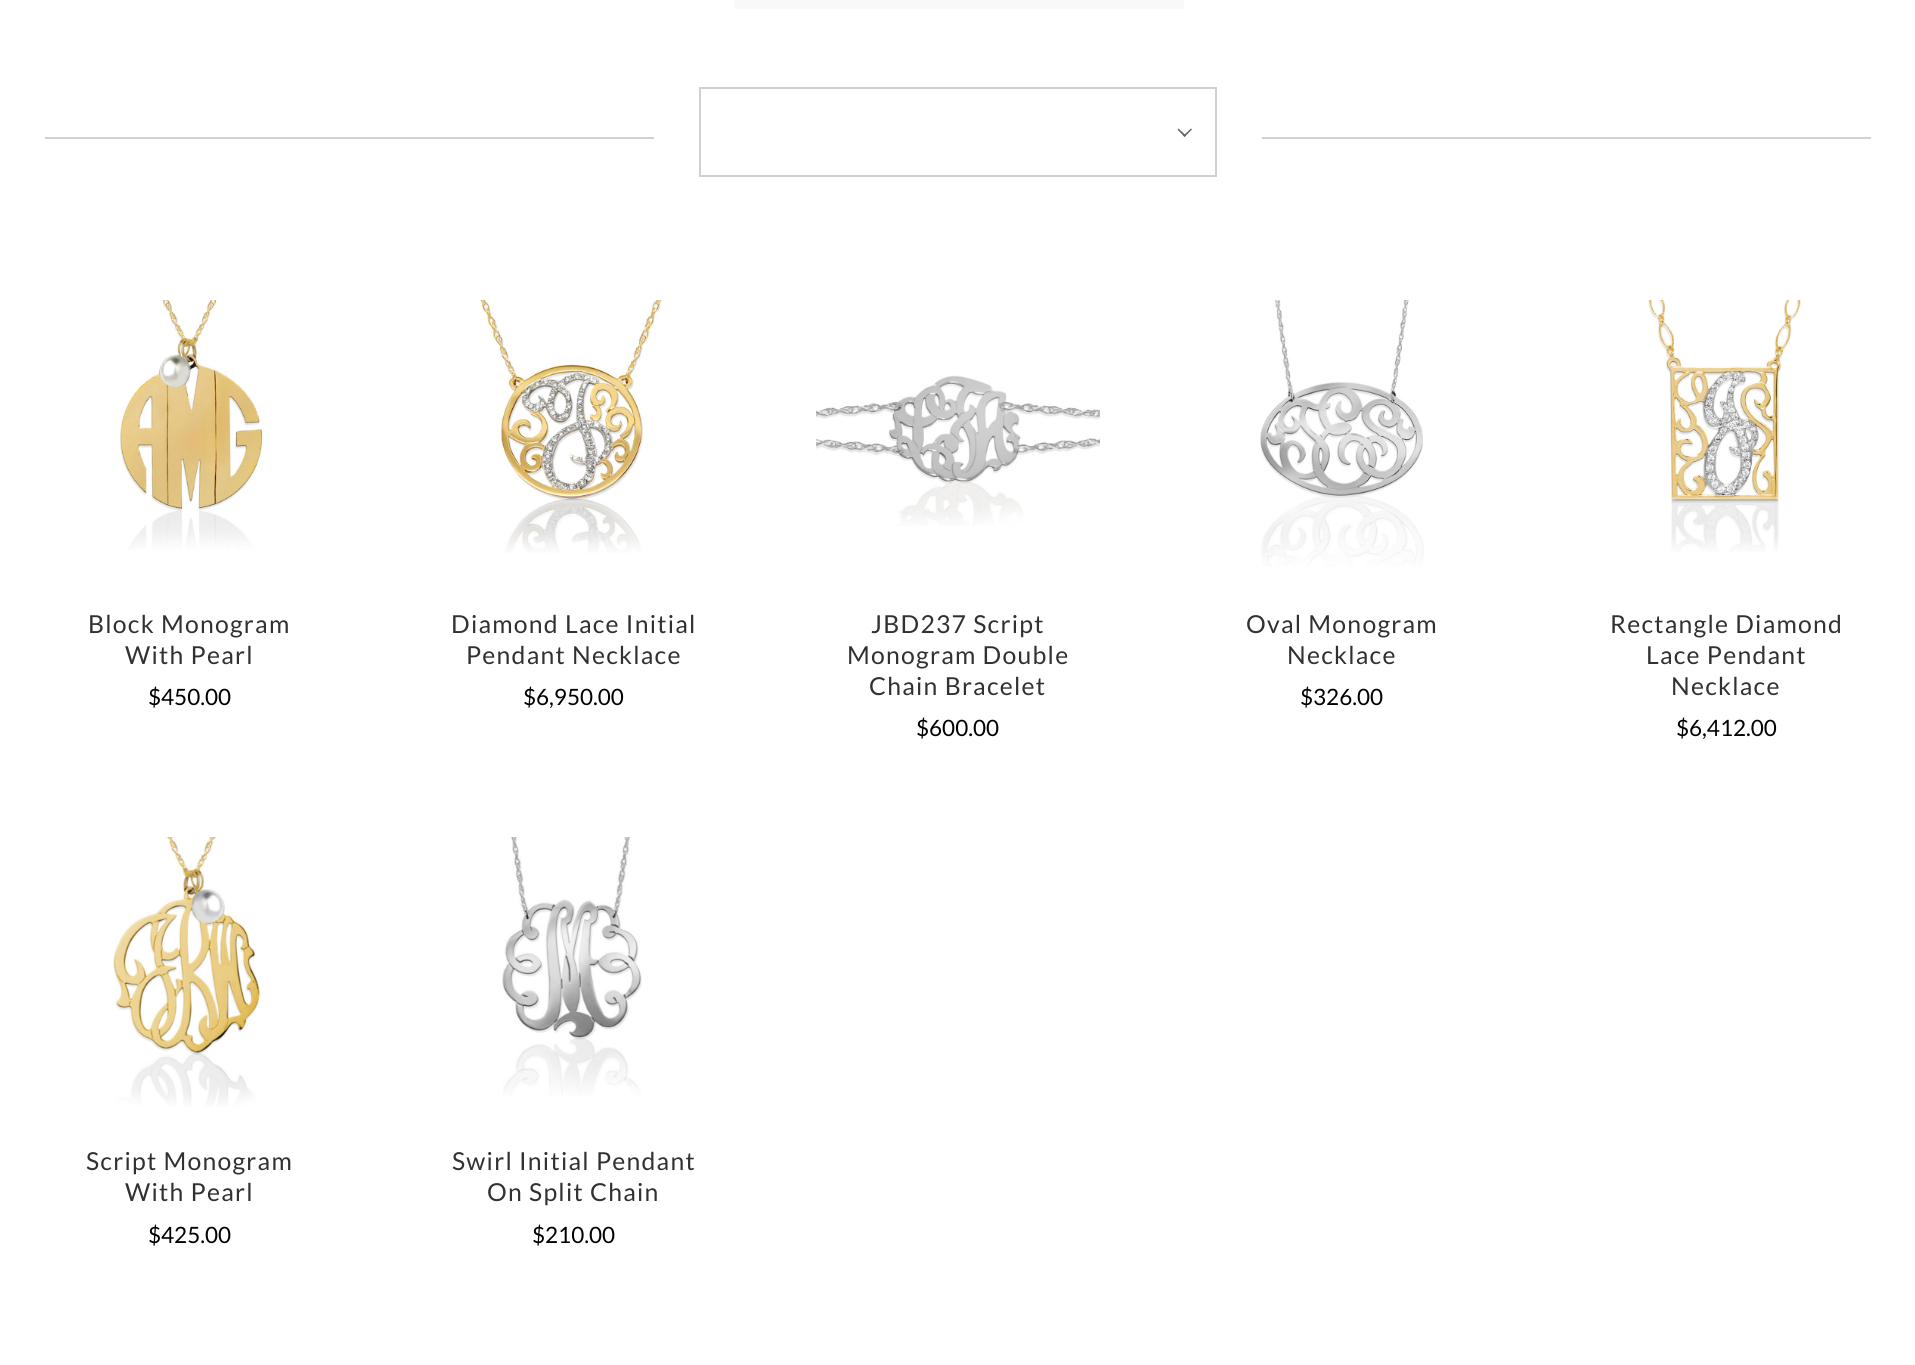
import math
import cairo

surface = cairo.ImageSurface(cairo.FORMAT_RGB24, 1915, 1365)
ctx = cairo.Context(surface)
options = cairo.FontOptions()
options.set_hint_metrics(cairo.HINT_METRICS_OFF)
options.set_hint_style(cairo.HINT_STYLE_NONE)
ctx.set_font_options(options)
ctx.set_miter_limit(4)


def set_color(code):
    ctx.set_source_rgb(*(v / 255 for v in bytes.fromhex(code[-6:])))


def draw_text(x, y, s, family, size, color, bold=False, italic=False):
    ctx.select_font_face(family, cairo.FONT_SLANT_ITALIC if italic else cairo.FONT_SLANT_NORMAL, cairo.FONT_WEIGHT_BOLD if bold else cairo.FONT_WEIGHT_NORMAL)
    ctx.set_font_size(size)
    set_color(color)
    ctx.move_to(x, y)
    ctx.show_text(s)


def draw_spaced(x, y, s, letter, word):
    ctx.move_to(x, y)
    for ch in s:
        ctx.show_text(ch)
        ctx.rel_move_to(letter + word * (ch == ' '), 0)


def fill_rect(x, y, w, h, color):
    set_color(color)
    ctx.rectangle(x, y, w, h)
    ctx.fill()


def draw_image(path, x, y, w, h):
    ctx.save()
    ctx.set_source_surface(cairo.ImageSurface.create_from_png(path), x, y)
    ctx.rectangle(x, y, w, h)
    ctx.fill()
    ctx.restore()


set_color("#ffffff")
ctx.paint()
fill_rect(734, 0, 450, 9, "#f9f9f9")
fill_rect(45, 137, 1826, 2, "#d1d1d1")
fill_rect(654, 137, 608, 2, "#ffffff")
ctx.rectangle(700, 88, 516, 88)
set_color("#d1d1d1")
ctx.stroke()
set_color("#666666")
ctx.new_path()
ctx.move_to(1192, 129.5)
ctx.line_to(1184.5, 137)
ctx.line_to(1183.5, 135.5)
ctx.line_to(1191, 128.5)
ctx.close_path()
ctx.fill()
ctx.new_path()
ctx.move_to(1186, 135.5)
ctx.line_to(1184.5, 137)
ctx.line_to(1177.5, 129.5)
ctx.line_to(1178.5, 128.5)
ctx.close_path()
ctx.fill()
draw_image("assets/img1.png", 120, 300, 143, 250)
ctx.select_font_face("Lato")
ctx.set_font_size(24.75)
set_color("#313131")
draw_spaced(88, 633, "Block Monogram", 1.25, 0)
draw_spaced(125, 664, "With Pearl", 1.25, 0)
draw_text(148, 705, "$450.00", "Lato", 22.5, "#000000")
draw_image("assets/img2.png", 480, 300, 182, 253)
ctx.set_font_size(24.75)
set_color("#313131")
draw_spaced(451, 633, "Diamond Lace Initial", 1.25, 0)
draw_spaced(466, 664, "Pendant Necklace", 1.25, 0)
draw_text(523, 705, "$6,950.00", "Lato", 22.5, "#000000")
draw_image("assets/img3.png", 816, 375, 284, 151)
ctx.set_font_size(24.75)
set_color("#313131")
draw_spaced(871, 633, "JBD237 Script", 1.25, 0)
draw_spaced(847, 664, "Monogram Double", 1.25, 0)
draw_spaced(869, 695, "Chain Bracelet", 1.25, 0)
draw_text(916, 736, "$600.00", "Lato", 22.5, "#000000")
draw_image("assets/img4.png", 1260, 300, 164, 267)
ctx.set_font_size(24.75)
set_color("#313131")
draw_spaced(1246, 633, "Oval Monogram", 1.25, 0)
draw_spaced(1287, 664, "Necklace", 1.25, 0)
draw_text(1300, 705, "$326.00", "Lato", 22.5, "#000000")
draw_image("assets/img5.png", 1648, 300, 153, 252)
ctx.set_font_size(24.75)
set_color("#313131")
draw_spaced(1610, 633, "Rectangle Diamond", 1.25, 0)
draw_spaced(1646, 664, "Lace Pendant", 1.25, 0)
draw_spaced(1671, 695, "Necklace", 1.25, 0)
draw_text(1676, 736, "$6,412.00", "Lato", 22.5, "#000000")
draw_image("assets/img6.png", 113, 837, 148, 270)
ctx.set_font_size(24.75)
set_color("#313131")
draw_spaced(86, 1170, "Script Monogram", 1.25, 0)
draw_spaced(125, 1201, "With Pearl", 1.25, 0)
draw_text(148, 1243, "$425.00", "Lato", 22.5, "#000000")
draw_image("assets/img7.png", 502, 837, 140, 259)
ctx.set_font_size(24.75)
set_color("#313131")
draw_spaced(452, 1170, "Swirl Initial Pendant", 1.25, 0)
draw_spaced(487, 1201, "On Split Chain", 1.25, 0)
draw_text(532, 1243, "$210.00", "Lato", 22.5, "#000000")
surface.write_to_png("output.png")
